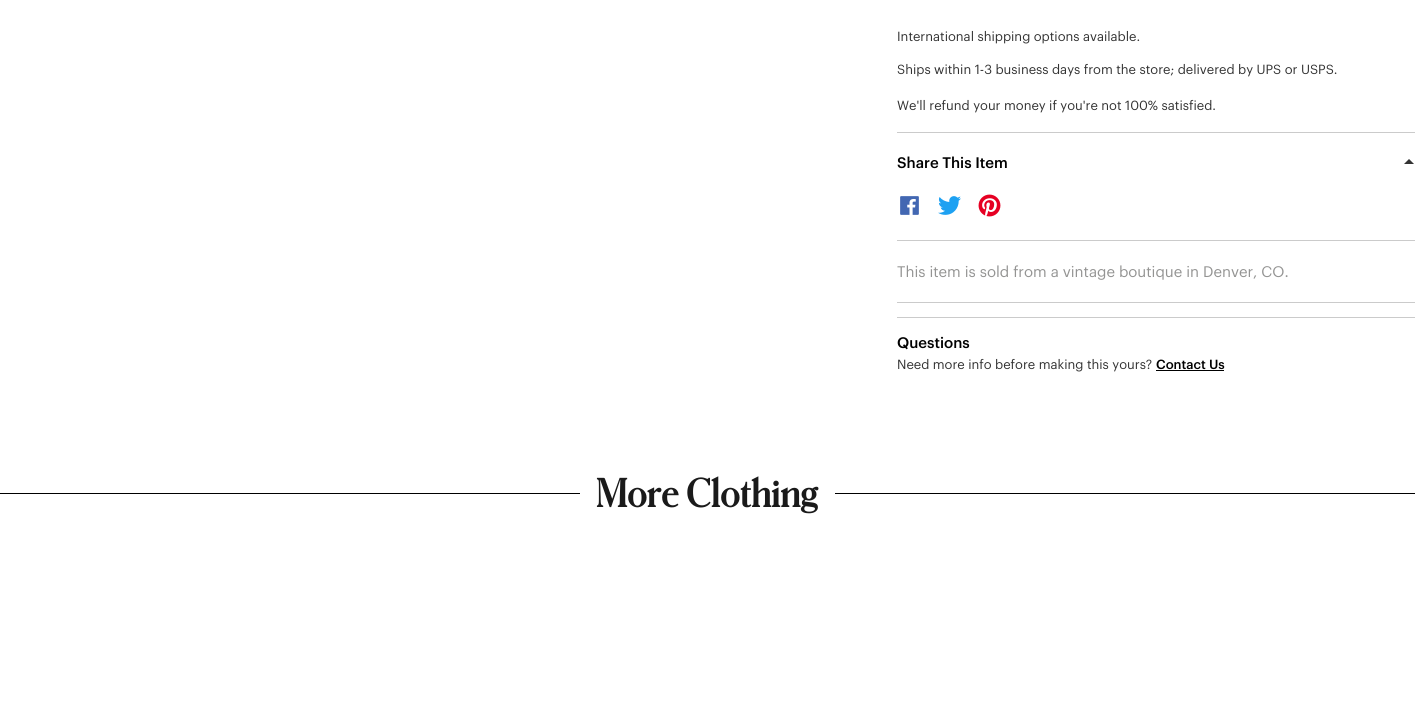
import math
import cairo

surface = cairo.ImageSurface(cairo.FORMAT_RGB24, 1415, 703)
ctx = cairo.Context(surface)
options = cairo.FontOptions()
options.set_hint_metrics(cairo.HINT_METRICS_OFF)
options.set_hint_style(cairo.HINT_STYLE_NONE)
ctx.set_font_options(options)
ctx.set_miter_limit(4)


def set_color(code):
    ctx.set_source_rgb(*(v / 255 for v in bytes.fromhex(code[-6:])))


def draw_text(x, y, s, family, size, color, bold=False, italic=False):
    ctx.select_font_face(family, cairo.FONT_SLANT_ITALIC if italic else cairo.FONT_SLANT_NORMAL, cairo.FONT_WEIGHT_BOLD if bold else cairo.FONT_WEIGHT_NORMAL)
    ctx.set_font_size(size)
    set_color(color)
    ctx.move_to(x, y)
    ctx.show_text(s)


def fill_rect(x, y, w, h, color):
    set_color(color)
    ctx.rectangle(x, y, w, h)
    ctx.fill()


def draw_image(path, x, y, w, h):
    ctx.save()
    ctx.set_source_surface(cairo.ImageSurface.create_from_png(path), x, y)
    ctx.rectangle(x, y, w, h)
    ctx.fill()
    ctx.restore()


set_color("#ffffff")
ctx.paint()
draw_text(897, 41, "International shipping options available.", "Graphik", 13, "#333333")
draw_text(897, 74, "Ships within 1-3 business days from the store; delivered by UPS or USPS.", "Graphik", 13, "#333333")
draw_text(897, 110, "We'll refund your money if you're not 100% satisfied.", "Graphik", 13, "#333333")
fill_rect(897, 132, 518, 1, "#cbcbcb")
draw_text(897, 168, "Share This Item", "Graphik Medium", 15, "#000000")
set_color("#333333")
ctx.set_fill_rule(cairo.FILL_RULE_EVEN_ODD)
ctx.new_path()
ctx.move_to(1404, 164)
ctx.line_to(1409, 159)
ctx.line_to(1414, 164)
ctx.close_path()
ctx.fill()
draw_image("assets/img1.png", 900, 196, 19, 19)
draw_image("assets/img2.png", 938, 196, 23, 19)
draw_image("assets/img3.png", 978, 194, 23, 23)
fill_rect(897, 240, 518, 1, "#cbcbcb")
draw_text(897, 277, "This item is sold from a vintage boutique in Denver, CO.", "Graphik", 15, "#949493")
fill_rect(897, 302, 518, 1, "#cbcbcb")
fill_rect(897, 317, 518, 1, "#cbcbcb")
draw_text(897, 348, "Questions", "Graphik Medium", 15, "#000000")
draw_text(897, 369, "Need more info before making this yours?", "Graphik", 13, "#333333")
draw_text(1156, 369, "Contact Us", "Graphik Medium", 13, "#000000")
fill_rect(1156, 370, 68, 1, "#000000")
fill_rect(0, 493, 1415, 1, "#000000")
fill_rect(580, 493, 255, 1, "#ffffff")
draw_text(596, 507, "More Clothing", "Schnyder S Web", 37.5, "#1a1a1a", bold=True)
surface.write_to_png("output.png")
